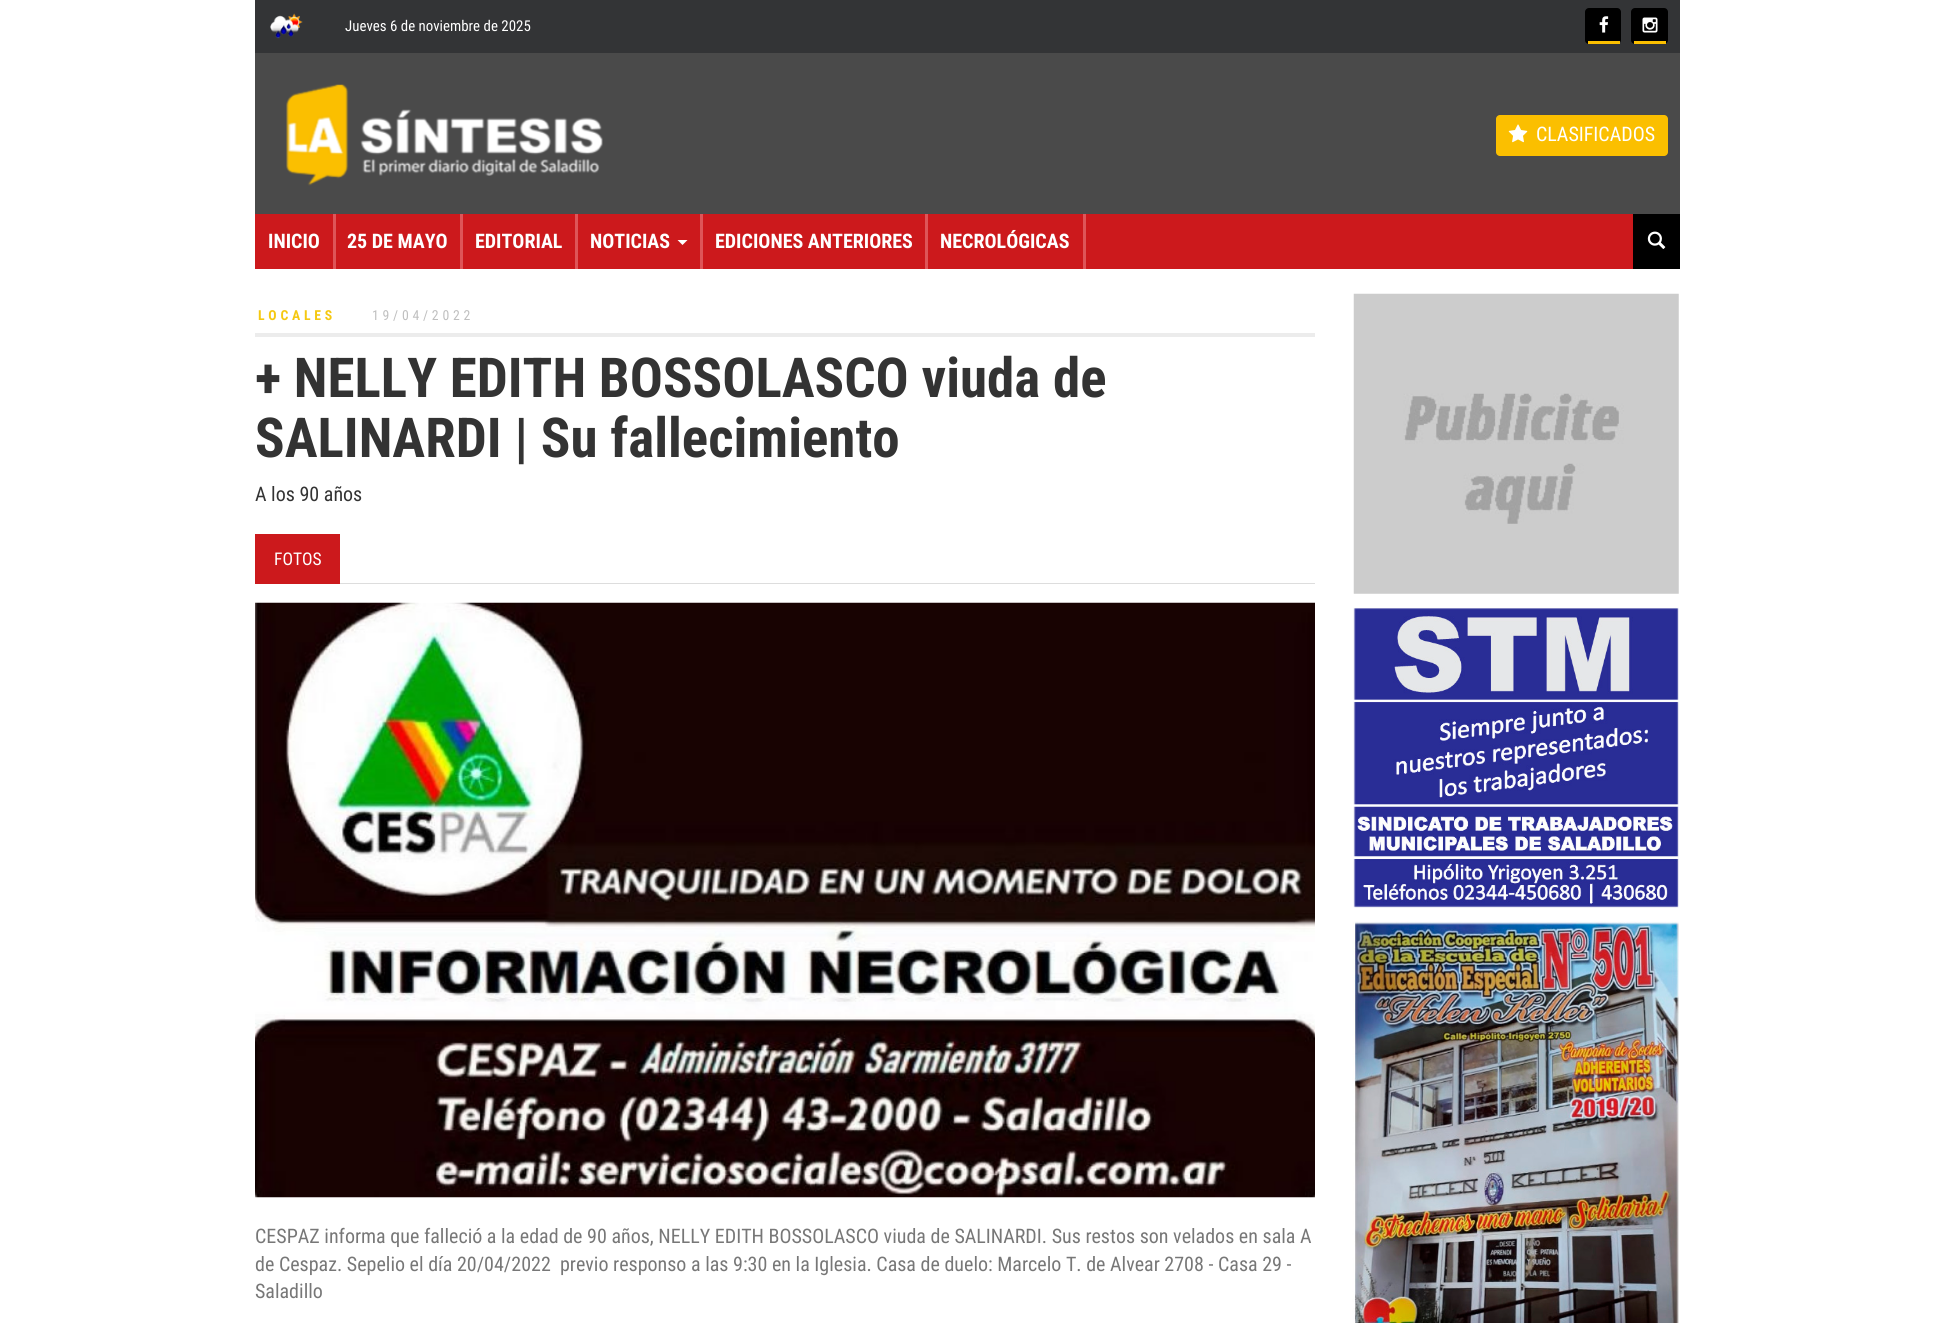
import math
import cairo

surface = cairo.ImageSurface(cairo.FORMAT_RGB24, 1935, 1323)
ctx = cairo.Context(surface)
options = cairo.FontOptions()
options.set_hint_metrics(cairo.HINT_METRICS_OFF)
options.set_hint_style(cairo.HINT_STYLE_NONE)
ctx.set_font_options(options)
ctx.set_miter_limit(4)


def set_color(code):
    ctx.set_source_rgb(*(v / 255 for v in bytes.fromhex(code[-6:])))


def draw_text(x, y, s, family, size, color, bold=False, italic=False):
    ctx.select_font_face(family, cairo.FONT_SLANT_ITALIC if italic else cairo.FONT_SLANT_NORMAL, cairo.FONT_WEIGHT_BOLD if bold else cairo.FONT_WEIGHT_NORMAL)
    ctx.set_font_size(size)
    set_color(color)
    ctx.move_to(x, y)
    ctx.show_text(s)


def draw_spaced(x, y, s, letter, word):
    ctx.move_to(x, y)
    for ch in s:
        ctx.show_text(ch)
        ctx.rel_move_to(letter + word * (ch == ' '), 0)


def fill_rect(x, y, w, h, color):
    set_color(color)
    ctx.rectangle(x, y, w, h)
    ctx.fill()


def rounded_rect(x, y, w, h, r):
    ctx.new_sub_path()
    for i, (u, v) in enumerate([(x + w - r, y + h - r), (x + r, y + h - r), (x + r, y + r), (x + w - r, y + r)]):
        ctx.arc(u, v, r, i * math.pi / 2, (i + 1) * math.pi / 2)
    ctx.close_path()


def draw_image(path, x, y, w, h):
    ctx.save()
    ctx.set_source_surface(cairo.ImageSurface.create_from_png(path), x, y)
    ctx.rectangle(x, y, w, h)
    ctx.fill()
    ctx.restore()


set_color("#ffffff")
ctx.paint()
fill_rect(255, 0, 1425, 53, "#333436")
draw_image("assets/img1.png", 270, 13, 33, 26)
draw_text(345, 31, "Jueves 6 de noviembre de 2025", "Roboto Condensed", 14.9, "#ffffff")
set_color("#000000")
rounded_rect(1585, 8, 36, 36, 4)
ctx.fill()
fill_rect(1588, 41, 32, 3, "#fbbf00")
draw_image("assets/img2.png", 1599, 16, 10, 17)
set_color("#000000")
rounded_rect(1631, 8, 37, 36, 4)
ctx.fill()
fill_rect(1634, 41, 32, 3, "#fbbf00")
draw_image("assets/img3.png", 1642, 17, 16, 16)
fill_rect(255, 53, 1425, 161, "#4a4a4a")
draw_image("assets/img4.png", 286, 84, 317, 102)
set_color("#fbbf00")
rounded_rect(1496, 115, 172, 41, 4)
ctx.fill()
draw_image("assets/img5.png", 1508, 124, 20, 19)
draw_text(1536, 141, "CLASIFICADOS", "Roboto Condensed", 20, "#ffffff")
fill_rect(255, 214, 1378, 55, "#cc191c")
fill_rect(333, 214, 3, 55, "#de5558")
draw_text(268, 248, "INICIO", "Roboto Condensed", 20, "#ffffff", bold=True)
fill_rect(460, 214, 3, 55, "#de5558")
draw_text(347, 248, "25 DE MAYO", "Roboto Condensed", 20, "#ffffff", bold=True)
fill_rect(575, 214, 3, 55, "#de5558")
draw_text(475, 248, "EDITORIAL", "Roboto Condensed", 20, "#ffffff", bold=True)
fill_rect(700, 214, 3, 55, "#de5558")
draw_text(590, 248, "NOTICIAS", "Roboto Condensed", 20, "#ffffff", bold=True)
ctx.new_path()
ctx.move_to(677.5, 240)
ctx.line_to(687.5, 240)
ctx.line_to(682.5, 245)
ctx.close_path()
ctx.fill()
fill_rect(925, 214, 3, 55, "#de5558")
draw_text(715, 248, "EDICIONES ANTERIORES", "Roboto Condensed", 20, "#ffffff", bold=True)
fill_rect(1083, 214, 3, 55, "#de5558")
draw_text(940, 248, "NECROLÓGICAS", "Roboto Condensed", 20, "#ffffff", bold=True)
fill_rect(1633, 214, 47, 55, "#000000")
draw_image("assets/img6.png", 1647, 231, 19, 18)
fill_rect(255, 333, 1060, 4, "#ececec")
ctx.set_font_size(13.75)
set_color("#f5c811")
draw_spaced(258, 320, "LOCALES", 3.75, 0)
ctx.select_font_face("Roboto Condensed")
set_color("#bfbfbf")
draw_spaced(372, 320, "19/04/2022", 3.75, 0)
draw_text(255, 397, "+ NELLY EDITH BOSSOLASCO viuda de", "Roboto Condensed", 55, "#333333", bold=True)
draw_text(255, 457, "SALINARDI | Su fallecimiento", "Roboto Condensed", 55, "#333333", bold=True)
draw_text(255, 501, "A los 90 años", "Roboto Condensed", 20, "#333333")
fill_rect(340, 583, 975, 1, "#dddddd")
fill_rect(255, 534, 85, 50, "#cc191c")
draw_text(274, 565, "FOTOS", "Roboto Condensed", 17.5, "#ffffff")
draw_image("assets/img7.png", 255, 602, 1060, 596)
draw_text(255, 1243, "CESPAZ informa que falleció a la edad de 90 años, NELLY EDITH BOSSOLASCO viuda de SALINARDI. Sus restos son velados en sala A", "Roboto Condensed", 20, "#777777")
draw_text(255, 1271, "de Cespaz. Sepelio el día 20/04/2022  previo responso a las 9:30 en la Iglesia. Casa de duelo: Marcelo T. de Alvear 2708 - Casa 29 -", "Roboto Condensed", 20, "#777777")
draw_text(255, 1298, "Saladillo", "Roboto Condensed", 20, "#777777")
draw_image("assets/img8.png", 1353, 293, 326, 301)
draw_image("assets/img9.png", 1353, 607, 326, 301)
draw_image("assets/img10.png", 1352, 921, 327, 402)
surface.write_to_png("output.png")
